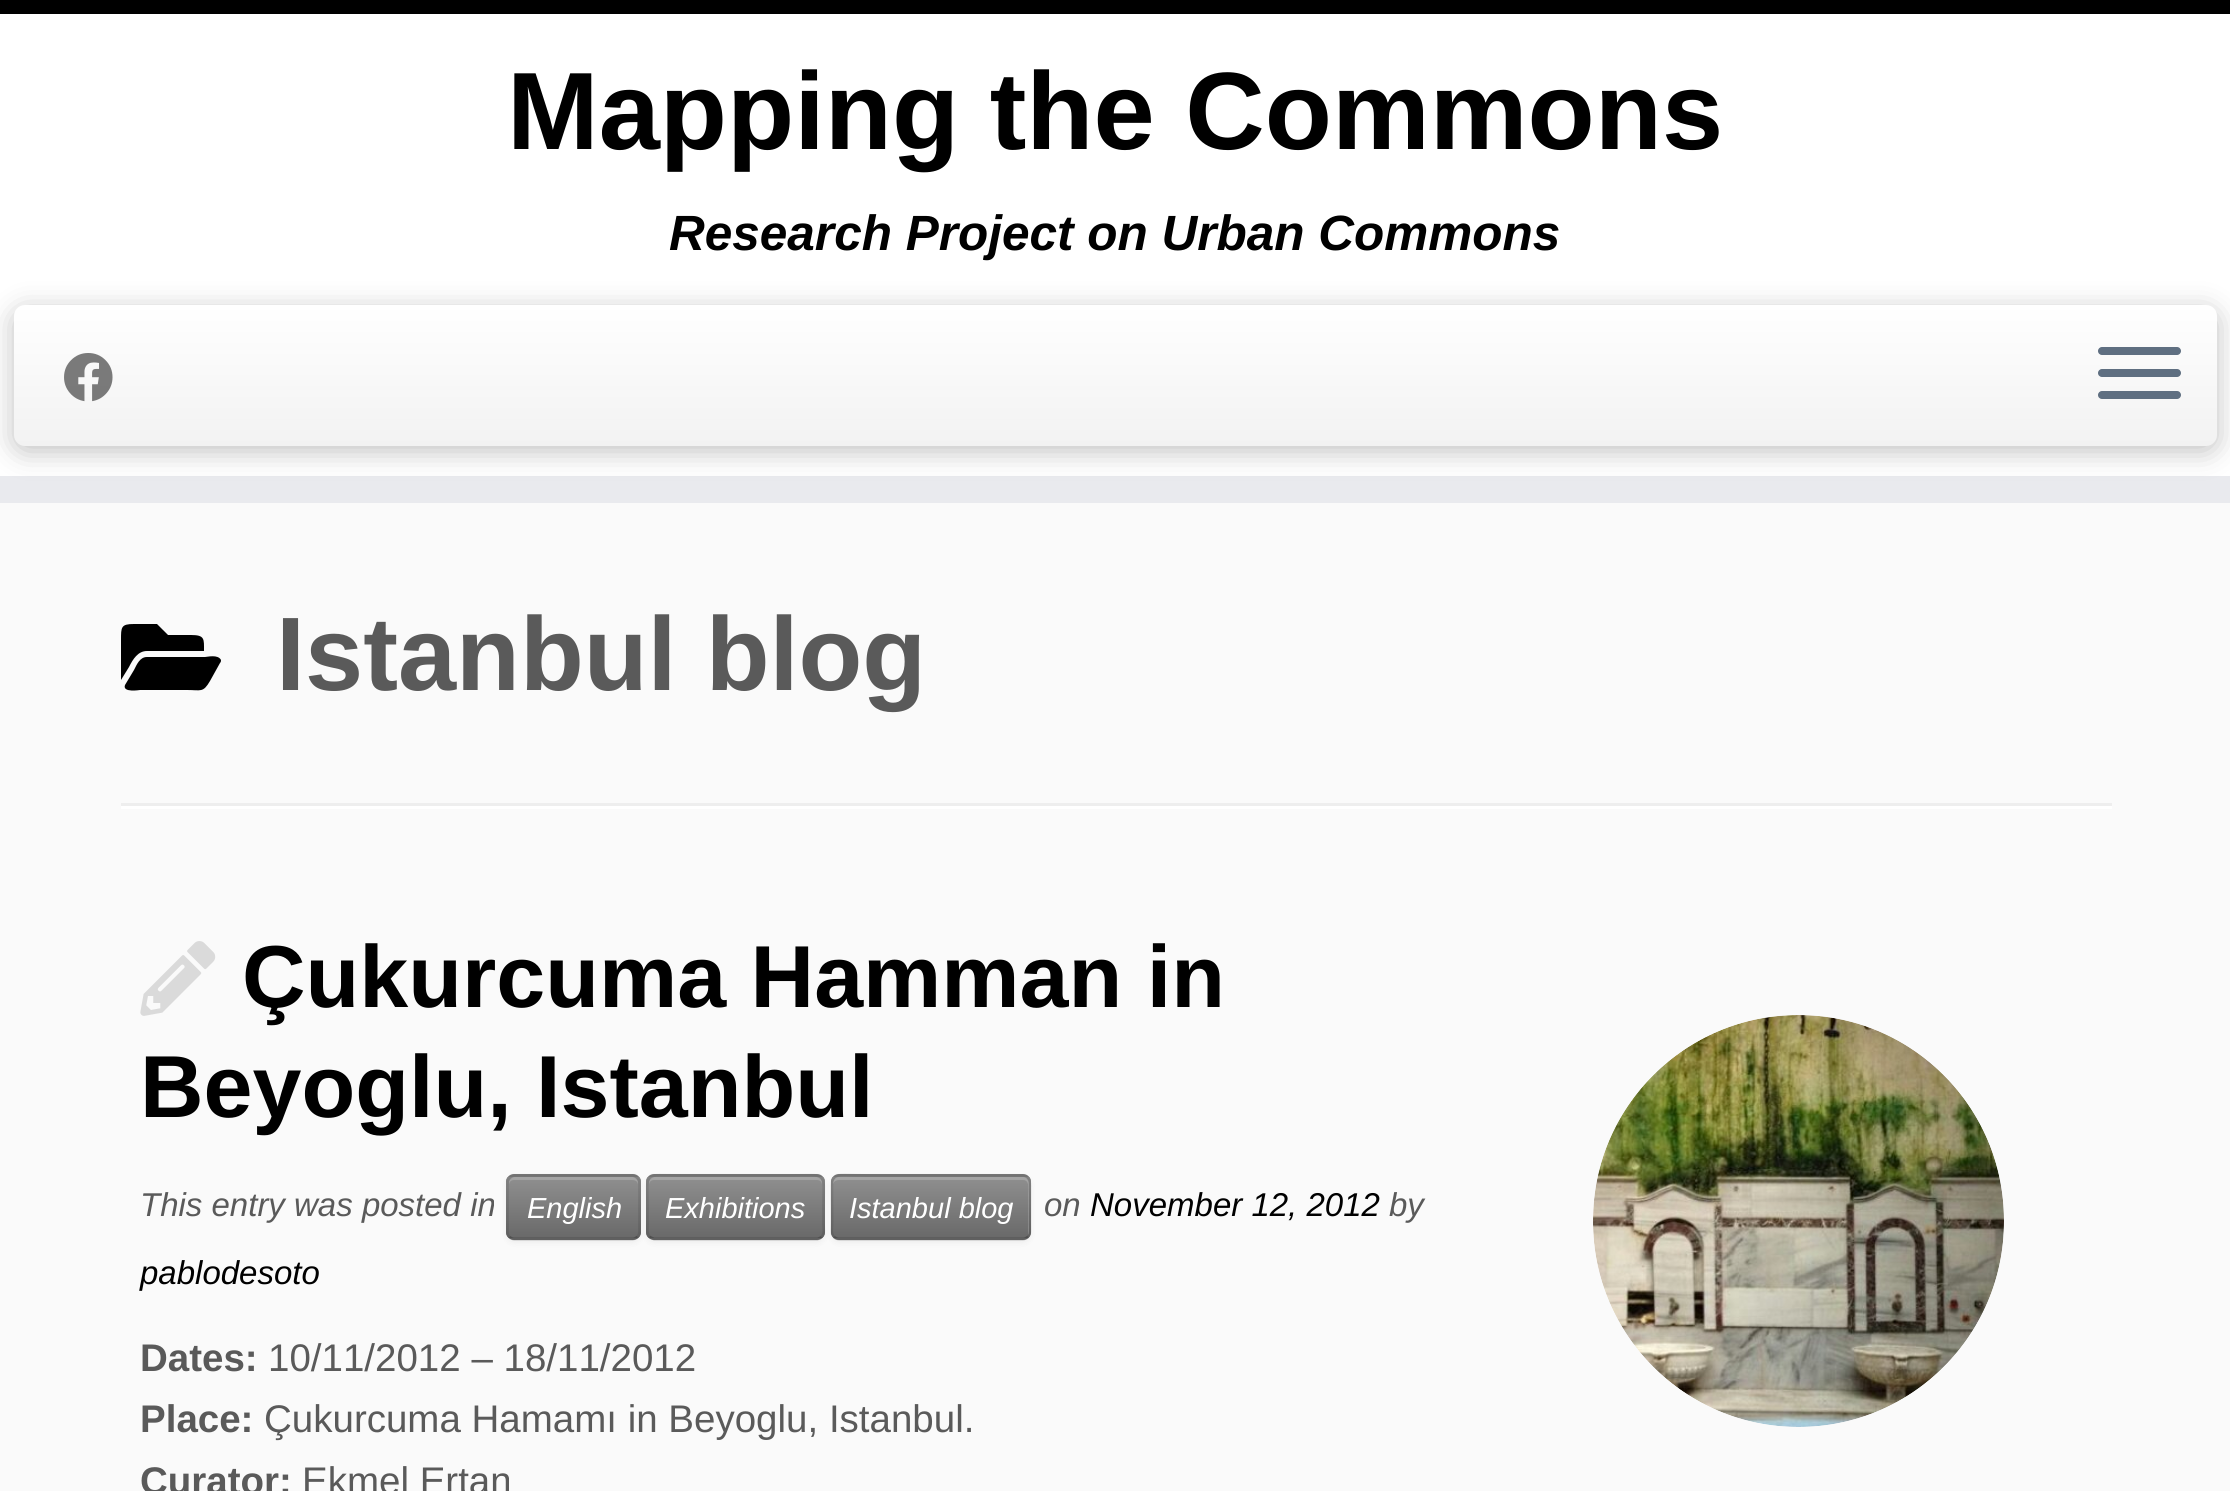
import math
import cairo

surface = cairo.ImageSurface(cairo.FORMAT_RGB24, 2230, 1491)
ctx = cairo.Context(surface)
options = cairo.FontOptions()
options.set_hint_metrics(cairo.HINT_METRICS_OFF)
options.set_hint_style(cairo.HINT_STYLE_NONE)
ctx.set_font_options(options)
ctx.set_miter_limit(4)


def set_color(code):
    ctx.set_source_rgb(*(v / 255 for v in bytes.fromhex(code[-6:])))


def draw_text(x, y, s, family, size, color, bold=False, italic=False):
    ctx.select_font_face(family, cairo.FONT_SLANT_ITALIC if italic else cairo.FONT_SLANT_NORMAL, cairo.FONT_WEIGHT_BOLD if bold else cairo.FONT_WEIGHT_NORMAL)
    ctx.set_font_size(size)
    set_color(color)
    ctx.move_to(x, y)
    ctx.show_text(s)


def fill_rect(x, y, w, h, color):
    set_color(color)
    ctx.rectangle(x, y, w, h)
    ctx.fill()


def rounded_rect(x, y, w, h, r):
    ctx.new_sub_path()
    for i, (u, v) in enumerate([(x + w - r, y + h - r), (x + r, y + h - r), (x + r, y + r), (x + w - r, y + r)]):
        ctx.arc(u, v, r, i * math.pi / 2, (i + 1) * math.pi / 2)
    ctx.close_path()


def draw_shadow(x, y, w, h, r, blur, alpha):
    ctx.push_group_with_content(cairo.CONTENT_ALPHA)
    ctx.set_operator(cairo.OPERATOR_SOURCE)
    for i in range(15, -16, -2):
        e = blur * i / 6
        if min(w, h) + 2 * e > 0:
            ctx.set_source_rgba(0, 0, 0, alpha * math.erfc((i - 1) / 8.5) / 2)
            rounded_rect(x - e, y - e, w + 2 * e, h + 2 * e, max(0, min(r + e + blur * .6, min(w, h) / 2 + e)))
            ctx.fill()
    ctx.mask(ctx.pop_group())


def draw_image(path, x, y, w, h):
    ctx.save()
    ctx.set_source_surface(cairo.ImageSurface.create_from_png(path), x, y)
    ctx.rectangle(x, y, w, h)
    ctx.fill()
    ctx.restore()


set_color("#fafafa")
ctx.paint()
fill_rect(0, 14, 2230, 462, "#ffffff")
fill_rect(0, 0, 2230, 14, "#000000")
fill_rect(0, 476, 2230, 27, "#e9eaee")
draw_text(507, 149, "Mapping the Commons", "Liberation Sans", 110, "#000000", bold=True)
draw_text(669, 250, "Research Project on Urban Commons", "Liberation Sans", 49.5, "#000000", bold=True, italic=True)
set_color("#000000")
draw_shadow(14, 311, 2203, 140, 11, 14, 0.25)
gradient = cairo.LinearGradient(1115, 305, 1115, 446)
gradient.add_color_stop_rgba(0, 1, 1, 1, 1)
gradient.add_color_stop_rgba(1, 0.949, 0.949, 0.949, 1)
ctx.set_source(gradient)
rounded_rect(14, 305, 2203, 141, 11)
ctx.fill()
draw_image("assets/img1.png", 64, 353, 49, 49)
set_color("#5f6f81")
rounded_rect(2098, 347, 83, 8, 4)
ctx.fill()
rounded_rect(2098, 369, 83, 8, 4)
ctx.fill()
rounded_rect(2098, 391, 83, 8, 4)
ctx.fill()
set_color("#000000")
ctx.new_path()
ctx.move_to(220, 663)
ctx.line_to(210, 681)
ctx.curve_to(203, 693, 201, 690, 187, 690)
ctx.line_to(140, 690)
ctx.curve_to(140, 690, 122, 693, 125, 685)
ctx.line_to(134, 670)
ctx.curve_to(137, 664, 140, 657, 147, 657)
ctx.line_to(205, 657)
ctx.curve_to(207, 657, 218, 654, 221, 660)
ctx.curve_to(221, 661, 221, 662, 220, 663)
ctx.close_path()
ctx.move_to(147, 651)
ctx.curve_to(138, 651, 133, 659, 129, 667)
ctx.line_to(121, 680)
ctx.line_to(121, 640)
ctx.curve_to(121, 627, 121, 624, 134, 624)
ctx.line_to(157, 624)
ctx.line_to(168, 635)
ctx.line_to(191, 635)
ctx.curve_to(205, 635, 204, 639, 204, 651)
ctx.close_path()
ctx.fill()
draw_text(276, 690, "Istanbul blog", "Liberation Sans", 104.5, "#5a5a5a", bold=True)
fill_rect(121, 803, 1991, 3, "#eeeeee")
fill_rect(121, 806, 1991, 3, "#ffffff")
draw_image("assets/img2.png", 140, 941, 76, 75)
draw_text(242, 1007, "Çukurcuma Hamman in", "Liberation Sans", 88, "#000000", bold=True)
draw_text(140, 1117, "Beyoglu, Istanbul", "Liberation Sans", 88, "#000000", bold=True)
draw_text(140, 1216, "This entry was posted in", "Liberation Sans", 33, "#5a5a5a", italic=True)
set_color("#000000")
draw_shadow(506, 1177, 135, 66, 8, 3, 0.05)
set_color("#808080")
rounded_rect(506, 1174, 135, 66, 8)
ctx.fill()
ctx.save()
rounded_rect(506, 1174, 135, 66, 8)
ctx.clip()
gradient = cairo.LinearGradient(573, 1177, 573, 1238)
gradient.add_color_stop_rgba(0, 0.561, 0.561, 0.561, 1)
gradient.add_color_stop_rgba(1, 0.412, 0.412, 0.412, 1)
ctx.set_source(gradient)
ctx.rectangle(506, 1177, 135, 61)
ctx.fill()
ctx.restore()
ctx.set_source_rgba(1, 1, 1, 0.2)
ctx.new_path()
ctx.move_to(514, 1180)
ctx.line_to(632, 1180)
ctx.curve_to(636, 1180, 638, 1182, 638, 1185)
ctx.line_to(638, 1183)
ctx.curve_to(638, 1180, 635, 1177, 632, 1177)
ctx.line_to(515, 1177)
ctx.curve_to(512, 1177, 509, 1180, 509, 1183)
ctx.line_to(509, 1185)
ctx.curve_to(509, 1182, 511, 1180, 514, 1180)
ctx.close_path()
ctx.fill()
ctx.new_path()
ctx.move_to(637.5, 1237)
ctx.curve_to(636, 1238, 634.5, 1239, 632.5, 1239)
ctx.line_to(514, 1239)
ctx.curve_to(512.5, 1239, 510.5, 1238, 509.5, 1237)
ctx.set_source_rgba(0, 0, 0, 0.25)
ctx.set_line_width(2.8)
ctx.stroke()
ctx.new_path()
ctx.move_to(509.5, 1237)
ctx.curve_to(508, 1235.5, 507.5, 1234, 507.5, 1232)
ctx.line_to(507.5, 1182.5)
ctx.curve_to(507.5, 1180.5, 508, 1179, 509.5, 1177.5)
ctx.curve_to(510.5, 1176.5, 512.5, 1175.5, 514, 1175.5)
ctx.line_to(632.5, 1175.5)
ctx.curve_to(634.5, 1175.5, 636, 1176.5, 637.5, 1177.5)
ctx.curve_to(638.5, 1179, 639.5, 1180.5, 639.5, 1182.5)
ctx.line_to(639.5, 1232)
ctx.curve_to(639.5, 1234, 638.5, 1235.5, 637.5, 1237)
ctx.set_source_rgba(0, 0, 0, 0.1)
ctx.stroke()
draw_text(527, 1218, "English", "Liberation Sans", 29, "#ffffff", italic=True)
set_color("#000000")
draw_shadow(646, 1177, 179, 66, 8, 3, 0.05)
set_color("#808080")
rounded_rect(646, 1174, 179, 66, 8)
ctx.fill()
ctx.save()
rounded_rect(646, 1174, 179, 66, 8)
ctx.clip()
gradient = cairo.LinearGradient(736, 1177, 736, 1238)
gradient.add_color_stop_rgba(0, 0.561, 0.561, 0.561, 1)
gradient.add_color_stop_rgba(1, 0.412, 0.412, 0.412, 1)
ctx.set_source(gradient)
ctx.rectangle(646, 1177, 179, 61)
ctx.fill()
ctx.restore()
ctx.set_source_rgba(1, 1, 1, 0.2)
ctx.new_path()
ctx.move_to(654, 1180)
ctx.line_to(817, 1180)
ctx.curve_to(820, 1180, 822, 1182, 822, 1185)
ctx.line_to(822, 1183)
ctx.curve_to(822, 1180, 819, 1177, 816, 1177)
ctx.line_to(655, 1177)
ctx.curve_to(652, 1177, 649, 1180, 649, 1183)
ctx.line_to(649, 1185)
ctx.curve_to(649, 1182, 651, 1180, 654, 1180)
ctx.close_path()
ctx.fill()
ctx.new_path()
ctx.move_to(821.5, 1237)
ctx.curve_to(820.5, 1238, 819, 1238.5, 817.5, 1239)
ctx.line_to(654, 1239)
ctx.line_to(649.5, 1237)
ctx.set_source_rgba(0, 0, 0, 0.25)
ctx.stroke()
ctx.new_path()
ctx.move_to(649.5, 1237)
ctx.curve_to(646.5, 1233.5, 647.5, 1227.5, 647.5, 1224)
ctx.line_to(647.5, 1207)
ctx.curve_to(647.5, 1170, 642, 1175.5, 681.5, 1175.5)
ctx.line_to(789.5, 1175.5)
ctx.curve_to(829, 1175.5, 823.5, 1170, 823.5, 1207)
ctx.line_to(823.5, 1224)
ctx.curve_to(823.5, 1227.5, 825, 1233.5, 821.5, 1237)
ctx.set_source_rgba(0, 0, 0, 0.1)
ctx.stroke()
draw_text(665, 1218, "Exhibitions", "Liberation Sans", 29, "#ffffff", italic=True)
set_color("#000000")
draw_shadow(831, 1177, 200, 66, 8, 3, 0.05)
set_color("#808080")
rounded_rect(831, 1174, 200, 66, 8)
ctx.fill()
ctx.save()
rounded_rect(831, 1174, 200, 66, 8)
ctx.clip()
gradient = cairo.LinearGradient(931, 1177, 931, 1238)
gradient.add_color_stop_rgba(0, 0.561, 0.561, 0.561, 1)
gradient.add_color_stop_rgba(1, 0.412, 0.412, 0.412, 1)
ctx.set_source(gradient)
ctx.rectangle(831, 1177, 200, 61)
ctx.fill()
ctx.restore()
ctx.set_source_rgba(1, 1, 1, 0.2)
ctx.new_path()
ctx.move_to(839, 1180)
ctx.line_to(1023, 1180)
ctx.curve_to(1030, 1180, 1028, 1189, 1028, 1193)
ctx.line_to(1028, 1235)
ctx.curve_to(1029, 1234, 1029, 1233, 1029, 1232)
ctx.line_to(1029, 1183)
ctx.curve_to(1029, 1180, 1026, 1177, 1023, 1177)
ctx.line_to(839, 1177)
ctx.curve_to(836, 1177, 833, 1180, 833, 1183)
ctx.line_to(833, 1185)
ctx.curve_to(833, 1182, 836, 1180, 839, 1180)
ctx.close_path()
ctx.fill()
ctx.new_path()
ctx.move_to(1028, 1237)
ctx.curve_to(1026.5, 1238, 1025, 1239, 1023, 1239)
ctx.line_to(839, 1239)
ctx.curve_to(837, 1239, 835, 1238, 834, 1237)
ctx.set_source_rgba(0, 0, 0, 0.25)
ctx.stroke()
ctx.new_path()
ctx.move_to(834, 1237)
ctx.curve_to(830.5, 1233.5, 832, 1227.5, 832, 1224)
ctx.line_to(832, 1207)
ctx.curve_to(832, 1168.5, 827, 1175.5, 869.5, 1175.5)
ctx.line_to(1023, 1175.5)
ctx.curve_to(1031, 1175.5, 1030, 1185.5, 1030, 1191)
ctx.line_to(1030, 1224)
ctx.curve_to(1030, 1227.5, 1031, 1233.5, 1028, 1237)
ctx.set_source_rgba(0, 0, 0, 0.1)
ctx.stroke()
draw_text(849, 1218, "Istanbul blog", "Liberation Sans", 29, "#ffffff", italic=True)
draw_text(1044, 1216, "on", "Liberation Sans", 33, "#5a5a5a", italic=True)
draw_text(1090, 1216, "November 12, 2012", "Liberation Sans", 33, "#000000", italic=True)
draw_text(1389, 1216, "by", "Liberation Sans", 33, "#5a5a5a", italic=True)
draw_text(140, 1284, "pablodesoto", "Liberation Sans", 33, "#000000", italic=True)
draw_text(140, 1371, "Dates:", "Liberation Sans", 38.5, "#5a5a5a", bold=True)
draw_text(268, 1371, "10/11/2012 – 18/11/2012", "Liberation Sans", 38.5, "#5a5a5a")
draw_text(140, 1432, "Place:", "Liberation Sans", 38.5, "#5a5a5a", bold=True)
draw_text(264, 1432, "Çukurcuma Hamamı in Beyoglu, Istanbul.", "Liberation Sans", 38.5, "#5a5a5a")
draw_text(140, 1494, "Curator:", "Liberation Sans", 38.5, "#5a5a5a", bold=True)
draw_text(302, 1494, "Ekmel Ertan", "Liberation Sans", 38.5, "#5a5a5a")
draw_image("assets/img3.png", 1593, 1015, 411, 412)
ctx.save()
ctx.rectangle(1518, 891, 553, 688)
ctx.clip()
rounded_rect(1463.5, 885.5, 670, 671, 335)
set_color("#fafafa")
ctx.set_line_width(259)
ctx.stroke()
rounded_rect(1463.5, 885.5, 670, 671, 335)
ctx.stroke()
ctx.restore()
surface.write_to_png("output.png")
